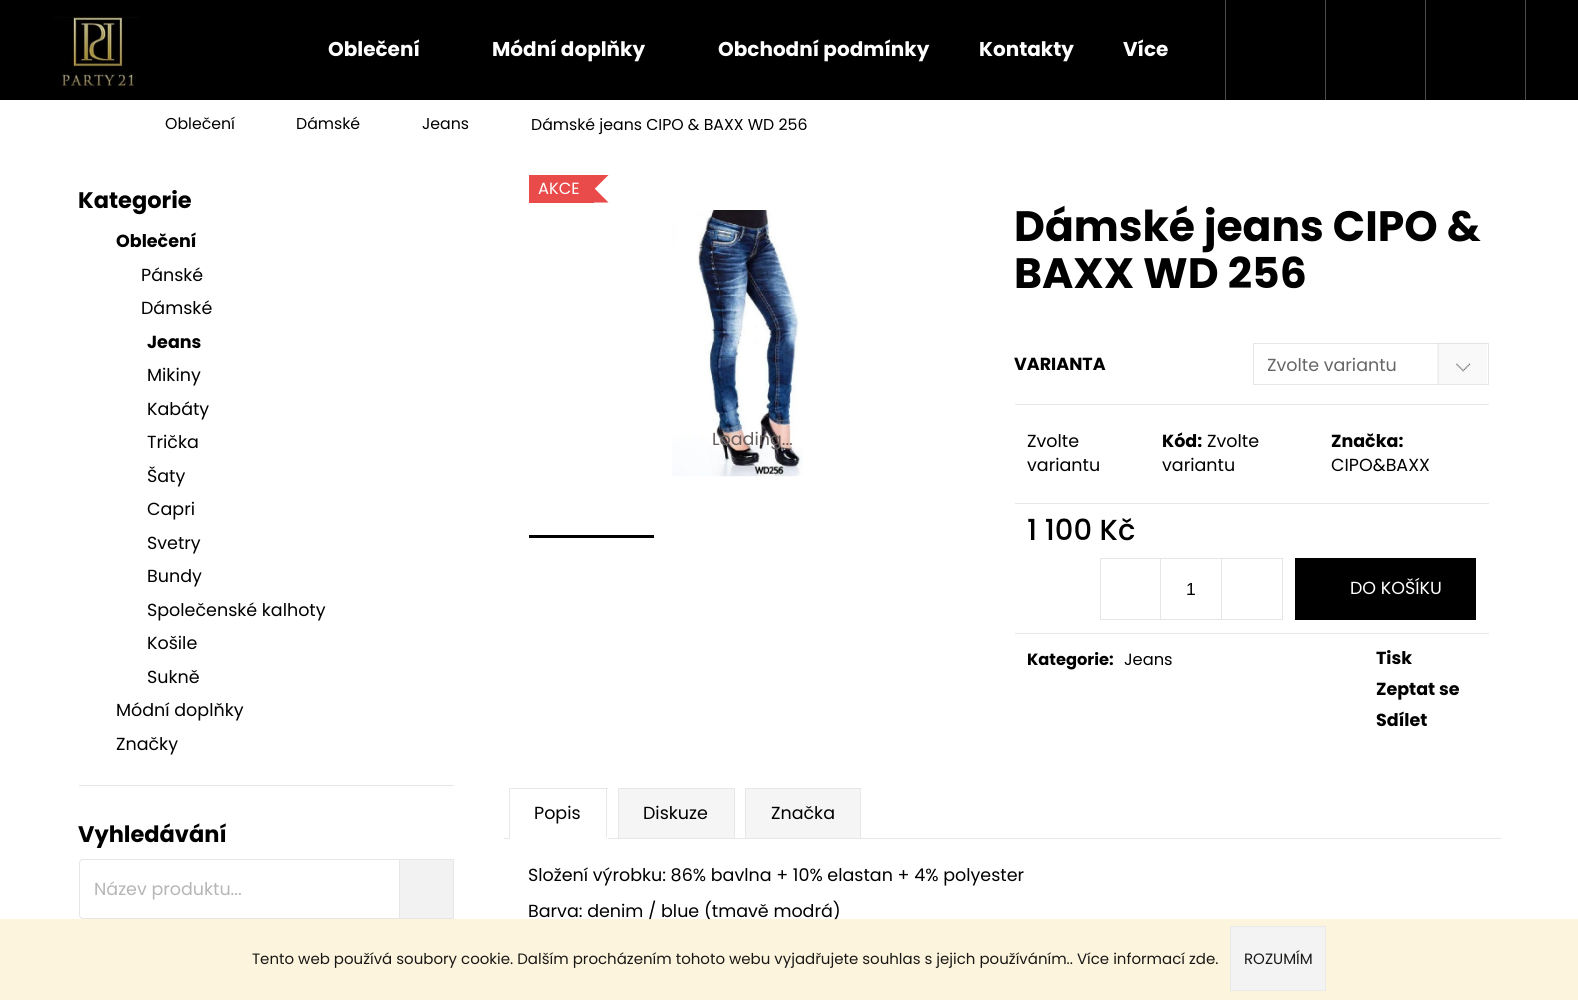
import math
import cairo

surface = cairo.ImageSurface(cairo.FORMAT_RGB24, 1578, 1000)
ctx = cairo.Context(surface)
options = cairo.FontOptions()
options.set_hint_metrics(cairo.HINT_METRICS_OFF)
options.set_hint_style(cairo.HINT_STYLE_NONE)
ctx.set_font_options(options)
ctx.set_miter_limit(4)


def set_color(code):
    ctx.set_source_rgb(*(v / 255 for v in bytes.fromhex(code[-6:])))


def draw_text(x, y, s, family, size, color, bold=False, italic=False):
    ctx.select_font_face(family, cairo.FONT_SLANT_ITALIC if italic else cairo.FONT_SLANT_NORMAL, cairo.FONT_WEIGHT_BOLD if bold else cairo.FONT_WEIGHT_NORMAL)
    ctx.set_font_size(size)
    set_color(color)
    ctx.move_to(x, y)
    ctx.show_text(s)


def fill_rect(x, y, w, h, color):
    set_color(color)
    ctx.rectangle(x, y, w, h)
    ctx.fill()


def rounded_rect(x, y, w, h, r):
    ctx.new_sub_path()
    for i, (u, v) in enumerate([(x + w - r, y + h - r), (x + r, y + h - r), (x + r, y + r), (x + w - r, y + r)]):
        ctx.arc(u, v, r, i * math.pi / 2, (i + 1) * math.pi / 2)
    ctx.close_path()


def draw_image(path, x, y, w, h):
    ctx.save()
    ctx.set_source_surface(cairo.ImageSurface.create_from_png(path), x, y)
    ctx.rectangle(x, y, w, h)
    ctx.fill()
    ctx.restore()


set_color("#ffffff")
ctx.paint()
fill_rect(0, 0, 1578, 100, "#000000")
draw_image("assets/img1.png", 54, 15, 86, 72)
draw_text(328, 56, "Oblečení", "Poppins", 20, "#ffffff", bold=True)
draw_text(492, 56, "Módní doplňky", "Poppins", 20, "#ffffff", bold=True)
draw_text(718, 56, "Obchodní podmínky", "Poppins", 20, "#ffffff", bold=True)
draw_text(979, 56, "Kontakty", "Poppins", 20, "#ffffff", bold=True)
draw_text(1123, 56, "Více", "Poppins", 20, "#ffffff", bold=True)
fill_rect(1525, 0, 1, 100, "#4d4d4d")
fill_rect(1225, 0, 1, 100, "#4d4d4d")
fill_rect(1325, 0, 1, 100, "#4d4d4d")
fill_rect(1425, 0, 1, 100, "#4d4d4d")
draw_text(165, 129, "Oblečení", "Poppins", 15.75, "#000000")
draw_text(296, 129, "Dámské", "Poppins", 15.75, "#000000")
draw_text(422, 129, "Jeans", "Poppins", 15.75, "#000000")
draw_text(531, 130, "Dámské jeans CIPO & BAXX WD 256", "Poppins", 15.75, "#000000")
draw_text(78, 208, "Kategorie", "Poppins", 22.5, "#000000", bold=True)
draw_text(116, 247, "Oblečení", "Poppins", 17.5, "#000000", bold=True)
draw_text(141, 281, "Pánské", "Poppins", 17.5, "#000000")
draw_text(141, 314, "Dámské", "Poppins", 17.5, "#000000")
draw_text(147, 348, "Jeans", "Poppins", 17.5, "#000000", bold=True)
draw_text(147, 381, "Mikiny", "Poppins", 17.5, "#000000")
draw_text(147, 415, "Kabáty", "Poppins", 17.5, "#000000")
draw_text(147, 448, "Trička", "Poppins", 17.5, "#000000")
draw_text(147, 482, "Šaty", "Poppins", 17.5, "#000000")
draw_text(147, 515, "Capri", "Poppins", 17.5, "#000000")
draw_text(147, 549, "Svetry", "Poppins", 17.5, "#000000")
draw_text(147, 582, "Bundy", "Poppins", 17.5, "#000000")
draw_text(147, 616, "Společenské kalhoty", "Poppins", 17.5, "#000000")
draw_text(147, 649, "Košile", "Poppins", 17.5, "#000000")
draw_text(147, 683, "Sukně", "Poppins", 17.5, "#000000")
draw_text(116, 716, "Módní doplňky", "Poppins", 17.5, "#000000")
draw_text(116, 750, "Značky", "Poppins", 17.5, "#000000")
fill_rect(79, 785, 375, 1, "#e6e6e6")
draw_text(78, 842, "Vyhledávání", "Poppins", 22.5, "#000000", bold=True)
rounded_rect(79.5, 859.5, 374, 59, 3.5)
set_color("#e6e6e6")
ctx.set_line_width(1)
ctx.stroke()
draw_text(94, 895, "Název produktu...", "Poppins", 17.5, "#b6b6b6")
set_color("#f2f2f2")
ctx.rectangle(399.5, 859.5, 54, 59)
ctx.fill_preserve()
set_color("#e6e6e6")
ctx.stroke()
fill_rect(529, 175, 65, 28, "#e94b4b")
draw_text(538, 194, "AKCE", "Poppins", 16.25, "#ffffff")
set_color("#e94b4b")
ctx.new_path()
ctx.move_to(578.5, 187.5)
ctx.line_to(593.5, 187.5)
ctx.line_to(608.5, 202.5)
ctx.line_to(593.5, 202.5)
ctx.close_path()
ctx.fill()
ctx.new_path()
ctx.move_to(593.5, 175)
ctx.line_to(608.5, 175)
ctx.line_to(593.5, 190)
ctx.line_to(578.5, 190)
ctx.close_path()
ctx.fill()
draw_image("assets/img2.png", 672, 210, 131, 267)
draw_text(712, 445, "Loading...", "Poppins", 17.5, "#665e5d")
fill_rect(529, 535, 125, 3, "#000000")
draw_text(1014, 241, "Dámské jeans CIPO &", "Poppins", 42.5, "#000000", bold=True)
draw_text(1014, 288, "BAXX WD 256", "Poppins", 42.5, "#000000", bold=True)
draw_text(1014, 370, "VARIANTA", "Poppins", 17.5, "#000000", bold=True)
draw_image("assets/img3.png", 1437, 342, 50, 42)
ctx.rectangle(1253.5, 343.5, 235, 41)
set_color("#e6e6e6")
ctx.stroke()
ctx.save()
ctx.rectangle(1268, 350, 163, 28)
ctx.clip()
draw_text(1267, 371, "Zvolte variantu", "Poppins", 17.5, "#666666")
ctx.restore()
fill_rect(1015, 404, 474, 1, "#e7e7e7")
fill_rect(1015, 503, 474, 1, "#e7e7e7")
draw_text(1027, 447, "Zvolte", "Poppins", 17.5, "#000000")
draw_text(1027, 471, "variantu", "Poppins", 17.5, "#000000")
draw_text(1162, 447, "Kód:", "Poppins", 17.5, "#000000", bold=True)
draw_text(1207, 447, "Zvolte", "Poppins", 17.5, "#000000")
draw_text(1162, 471, "variantu", "Poppins", 17.5, "#000000")
draw_text(1331, 447, "Značka:", "Poppins", 17.5, "#000000", bold=True)
draw_text(1331, 471, "CIPO&BAXX", "Poppins", 17.5, "#000000")
fill_rect(1015, 633, 474, 1, "#e7e7e7")
draw_text(1027, 540, "1 100 Kč", "Poppins Medium", 29, "#000000")
ctx.rectangle(1100.5, 558.5, 182, 61)
set_color("#e6e6e6")
ctx.stroke()
fill_rect(1160, 559, 1, 60, "#e6e6e6")
draw_text(1186, 595, "1", "Liberation Sans", 17.5, "#000000")
fill_rect(1221, 559, 1, 60, "#e6e6e6")
fill_rect(1295, 558, 181, 62, "#000000")
draw_text(1350, 594, "DO KOŠÍKU", "Poppins", 17.5, "#ffffff")
draw_text(1027, 665, "Kategorie:", "Poppins", 16.25, "#000000", bold=True)
draw_text(1124, 665, "Jeans", "Poppins", 16.25, "#000000")
draw_text(1376, 664, "Tisk", "Poppins", 17.5, "#000000", bold=True)
draw_text(1376, 695, "Zeptat se", "Poppins", 17.5, "#000000", bold=True)
draw_text(1376, 726, "Sdílet", "Poppins", 17.5, "#000000", bold=True)
fill_rect(504, 838, 997, 1, "#e7e7e7")
fill_rect(509, 788, 99, 1, "#e7e7e7")
fill_rect(606, 788, 1, 51, "#e7e7e7")
fill_rect(509, 838, 99, 1, "#ffffff")
fill_rect(509, 788, 1, 51, "#e7e7e7")
draw_text(534, 819, "Popis", "Poppins", 17.5, "#000000")
set_color("#f5f5f5")
ctx.rectangle(618.5, 788.5, 116, 50)
ctx.fill_preserve()
set_color("#e7e7e7")
ctx.stroke()
draw_text(643, 819, "Diskuze", "Poppins", 17.5, "#000000")
set_color("#f5f5f5")
ctx.rectangle(745.5, 788.5, 115, 50)
ctx.fill_preserve()
set_color("#e7e7e7")
ctx.stroke()
draw_text(771, 819, "Značka", "Poppins", 17.5, "#000000")
draw_text(528, 881, "Složení výrobku: 86% bavlna + 10% elastan + 4% polyester", "Poppins", 17.5, "#000000")
draw_text(528, 917, "Barva: denim / blue (tmavě modrá)", "Poppins", 17.5, "#000000")
ctx.set_source_rgba(0.992, 0.953, 0.855, 0.9)
ctx.rectangle(0, 919, 1578, 81)
ctx.fill()
draw_text(252, 964, "Tento web používá soubory cookie. Dalším procházením tohoto webu vyjadřujete souhlas s jejich používáním.. Více informací", "Poppins", 15, "#191816")
draw_text(1189, 964, "zde.", "Poppins", 15, "#191816")
set_color("#f3f3f3")
ctx.rectangle(1230.5, 926.5, 95, 64)
ctx.fill_preserve()
set_color("#e9e9e9")
ctx.stroke()
draw_text(1244, 964, "ROZUMÍM", "Poppins", 15, "#191816")
surface.write_to_png("output.png")
